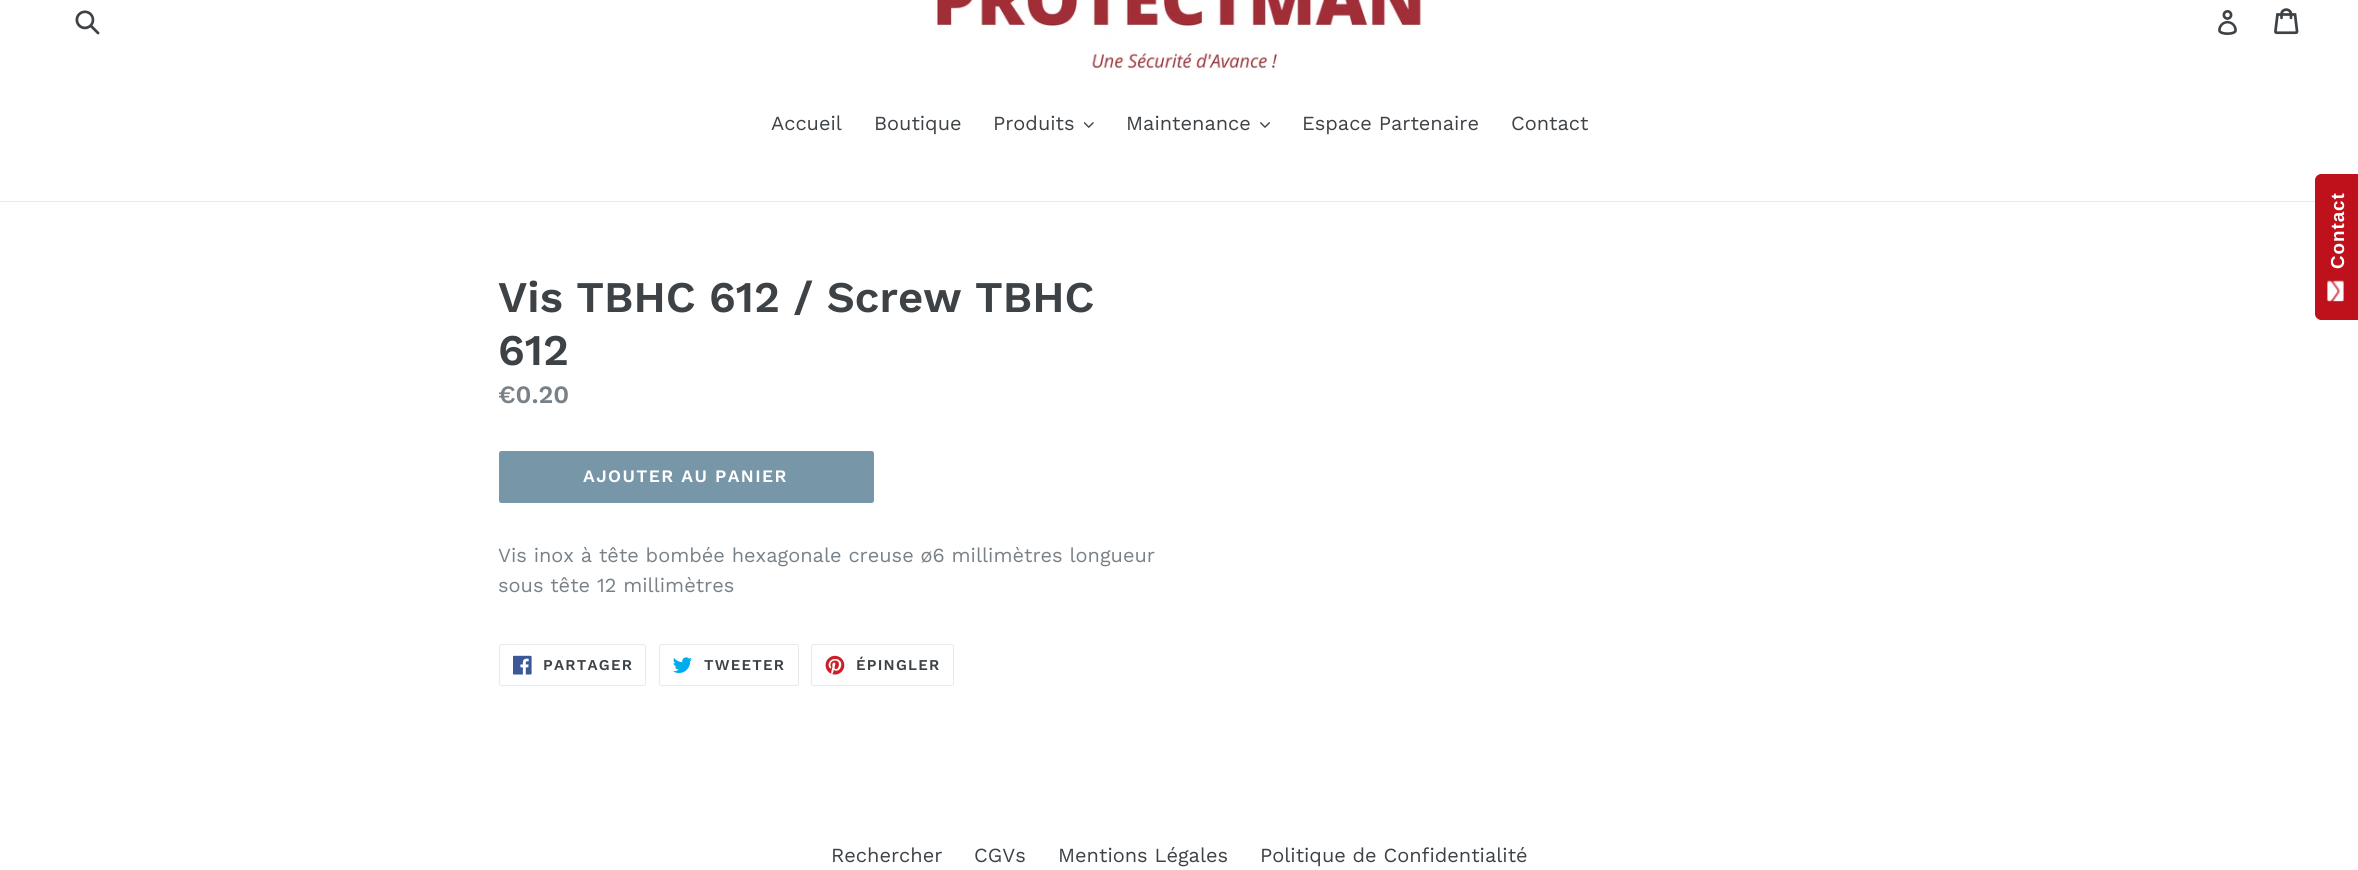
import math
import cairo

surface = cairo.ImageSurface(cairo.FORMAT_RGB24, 2358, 870)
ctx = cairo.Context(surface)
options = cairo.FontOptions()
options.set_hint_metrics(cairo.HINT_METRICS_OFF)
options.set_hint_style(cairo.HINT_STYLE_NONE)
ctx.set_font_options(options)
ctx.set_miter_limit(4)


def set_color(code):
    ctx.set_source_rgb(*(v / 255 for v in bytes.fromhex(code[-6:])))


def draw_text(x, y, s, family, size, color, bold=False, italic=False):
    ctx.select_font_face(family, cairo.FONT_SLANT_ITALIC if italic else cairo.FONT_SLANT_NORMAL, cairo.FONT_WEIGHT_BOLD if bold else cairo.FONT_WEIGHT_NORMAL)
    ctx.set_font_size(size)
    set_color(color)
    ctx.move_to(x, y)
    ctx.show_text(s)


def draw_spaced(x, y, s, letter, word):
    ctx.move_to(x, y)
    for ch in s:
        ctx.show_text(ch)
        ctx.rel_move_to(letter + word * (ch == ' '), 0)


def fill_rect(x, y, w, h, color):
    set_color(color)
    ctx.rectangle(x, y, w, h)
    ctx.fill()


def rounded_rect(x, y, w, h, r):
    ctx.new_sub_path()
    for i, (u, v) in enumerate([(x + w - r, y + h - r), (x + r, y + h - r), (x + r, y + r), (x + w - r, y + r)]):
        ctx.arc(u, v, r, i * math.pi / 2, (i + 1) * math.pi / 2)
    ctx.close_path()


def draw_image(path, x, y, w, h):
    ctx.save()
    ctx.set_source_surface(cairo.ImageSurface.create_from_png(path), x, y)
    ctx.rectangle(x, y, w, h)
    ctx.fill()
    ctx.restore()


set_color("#ffffff")
ctx.paint()
draw_image("assets/img1.png", 75, 10, 25, 25)
draw_image("assets/img2.png", 935, 0, 487, 69)
draw_image("assets/img3.png", 2218, 10, 19, 25)
draw_image("assets/img4.png", 2274, 8, 25, 27)
fill_rect(0, 201, 2315, 1, "#e8e9eb")
draw_text(771, 130, "Accueil", "Work Sans", 20, "#3d4246")
draw_text(874, 130, "Boutique", "Work Sans", 20, "#3d4246")
draw_text(993, 130, "Produits", "Work Sans", 20, "#3d4246")
draw_image("assets/img5.png", 1084, 122, 10, 6)
draw_text(1126, 130, "Maintenance", "Work Sans", 20, "#3d4246")
draw_image("assets/img6.png", 1260, 122, 10, 6)
draw_text(1302, 130, "Espace Partenaire", "Work Sans", 20, "#3d4246")
draw_text(1511, 130, "Contact", "Work Sans", 20, "#3d4246")
set_color("#bf111b")
ctx.new_path()
ctx.move_to(2315, 314)
ctx.line_to(2315, 180)
ctx.curve_to(2315, 177, 2318, 174, 2321, 174)
ctx.line_to(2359, 174)
ctx.line_to(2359, 320)
ctx.line_to(2321, 320)
ctx.curve_to(2318, 320, 2315, 317, 2315, 314)
ctx.close_path()
ctx.fill()
ctx.select_font_face("Liberation Sans", cairo.FONT_SLANT_NORMAL, cairo.FONT_WEIGHT_BOLD)
ctx.set_font_size(18.75)
set_color("#ffffff")
ctx.save()
ctx.translate(2344, 269)
ctx.rotate(-90 * math.pi / 180)
draw_spaced(0, 0, "Contact", 1, 0)
ctx.restore()
draw_image("assets/img7.png", 2327, 280, 17, 22)
draw_text(498, 312, "Vis TBHC 612 / Screw TBHC", "Work Sans SemiBold", 43.75, "#3d4246")
draw_text(498, 365, "612", "Work Sans SemiBold", 43.75, "#3d4246")
draw_text(498, 403, "€0.20", "Work Sans SemiBold", 25, "#788188")
set_color("#7796a8")
rounded_rect(499, 451, 375, 52, 2.5)
ctx.fill()
ctx.set_font_size(17.5)
set_color("#ffffff")
draw_spaced(583, 482, "AJOUTER AU PANIER", 1.4, 0)
draw_text(498, 562, "Vis inox à tête bombée hexagonale creuse ø6 millimètres longueur", "Work Sans", 20, "#788188")
draw_text(498, 592, "sous tête 12 millimètres", "Work Sans", 20, "#788188")
rounded_rect(499.5, 644.5, 146, 41, 2)
set_color("#e8e9eb")
ctx.set_line_width(1)
ctx.stroke()
draw_image("assets/img8.png", 513, 655, 19, 20)
ctx.select_font_face("Work Sans SemiBold")
ctx.set_font_size(15)
set_color("#3d4246")
draw_spaced(543, 670, "PARTAGER", 1.25, 0)
rounded_rect(659.5, 644.5, 139, 41, 2)
set_color("#e8e9eb")
ctx.stroke()
draw_image("assets/img9.png", 673, 657, 19, 16)
set_color("#3d4246")
draw_spaced(704, 670, "TWEETER", 1.25, 0)
rounded_rect(811.5, 644.5, 142, 41, 2)
set_color("#e8e9eb")
ctx.stroke()
draw_image("assets/img10.png", 825, 655, 20, 20)
set_color("#3d4246")
draw_spaced(856, 670, "ÉPINGLER", 1.25, 0)
draw_text(831, 862, "Rechercher", "Work Sans", 20, "#3d4246")
draw_text(974, 862, "CGVs", "Work Sans", 20, "#3d4246")
draw_text(1058, 862, "Mentions Légales", "Work Sans", 20, "#3d4246")
draw_text(1260, 862, "Politique de Confidentialité", "Work Sans", 20, "#3d4246")
surface.write_to_png("output.png")
